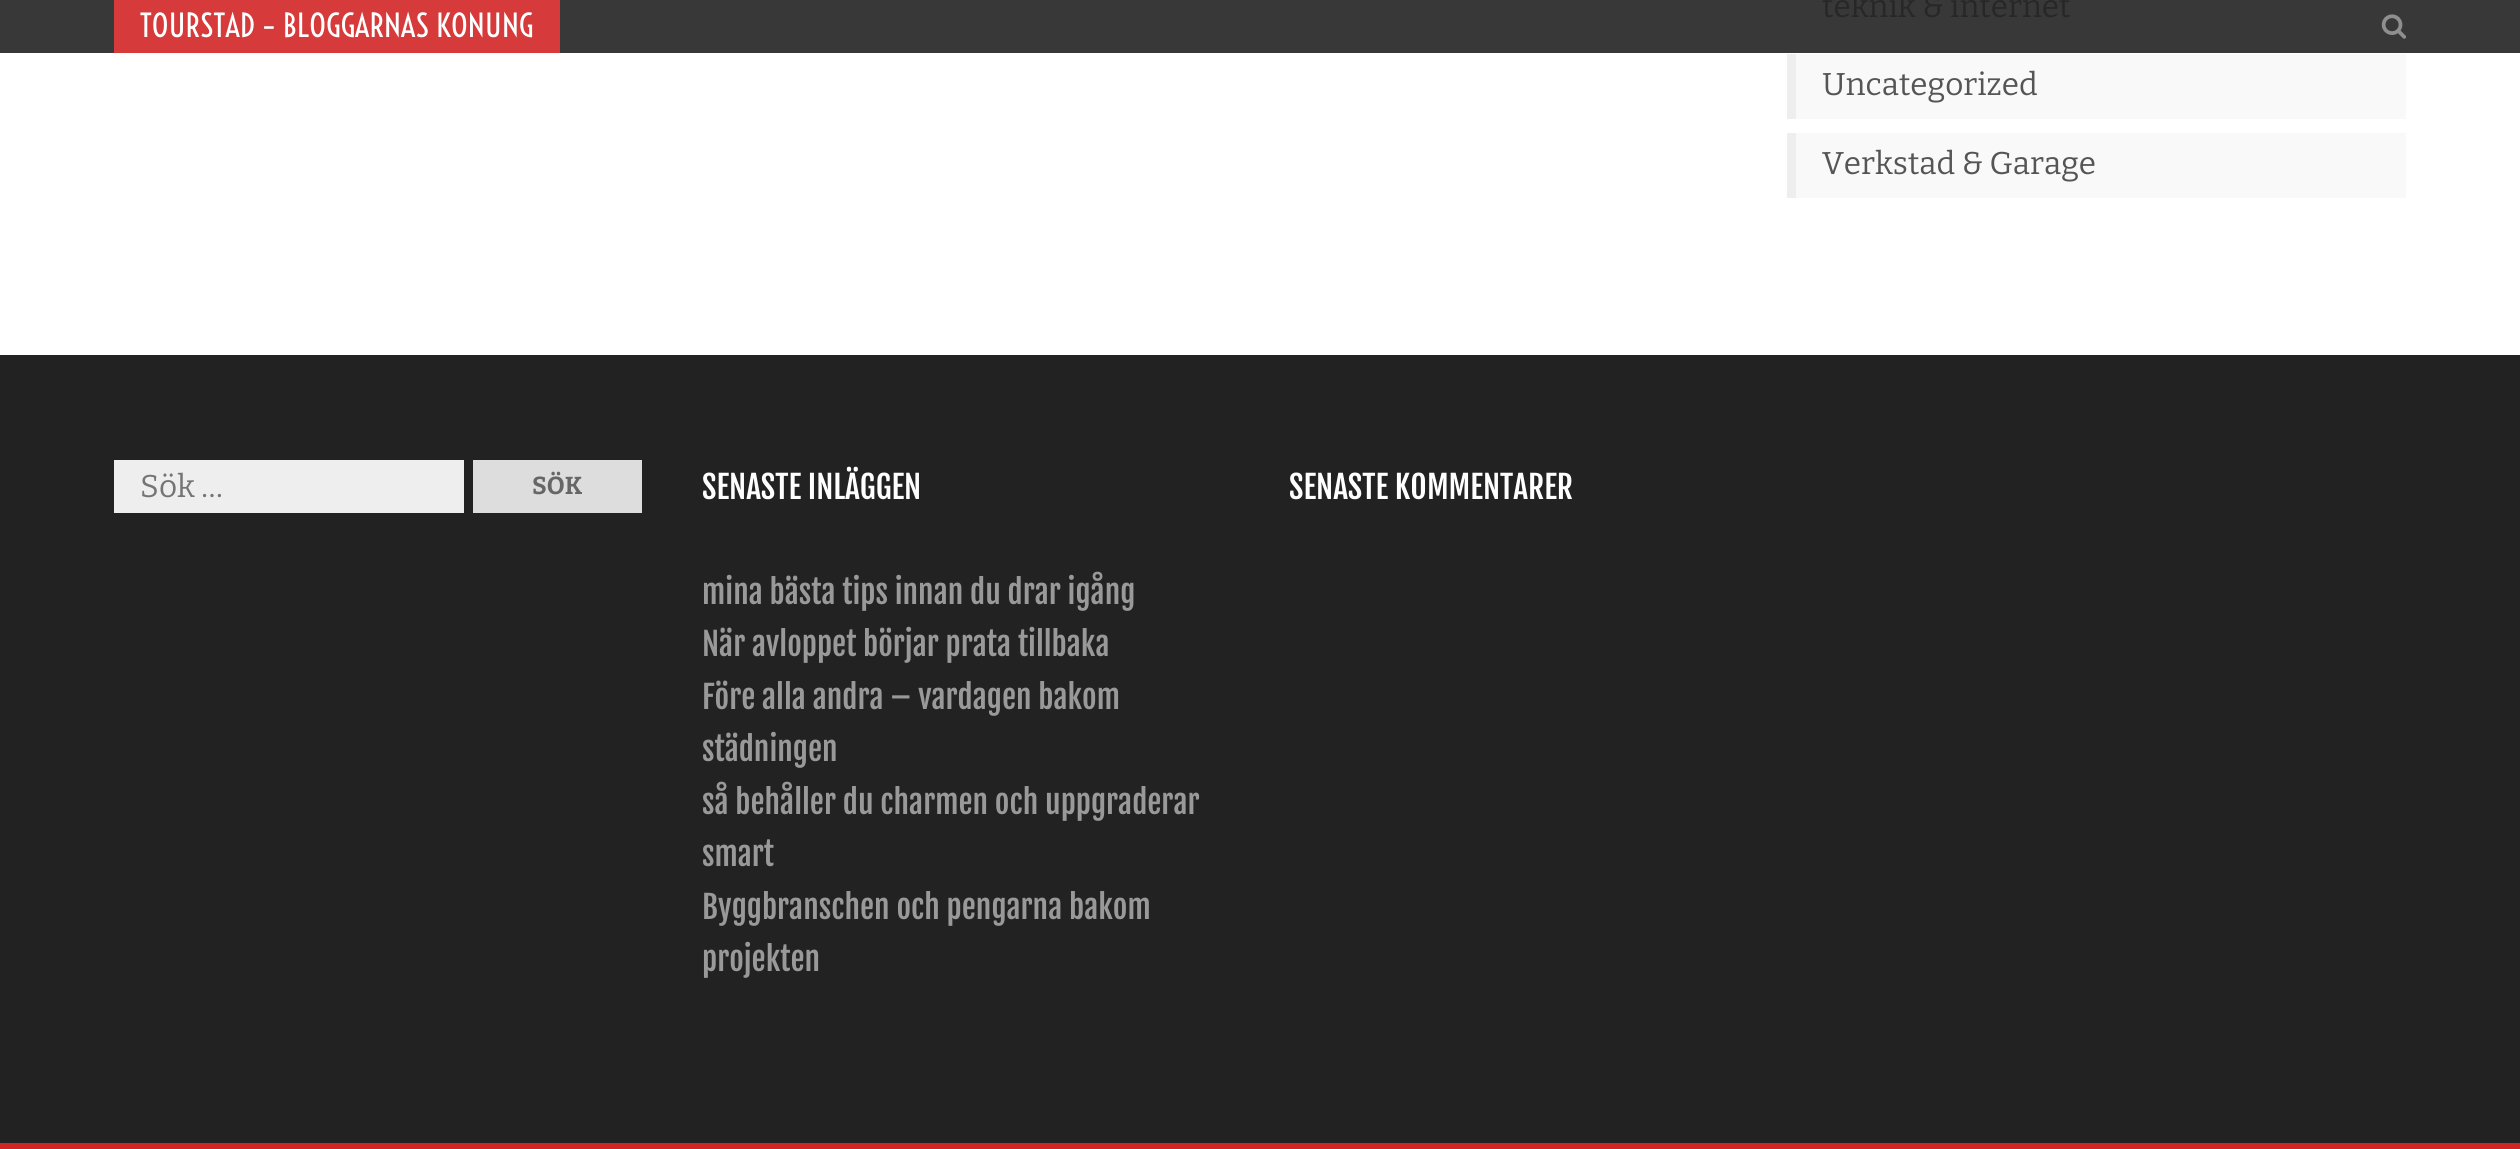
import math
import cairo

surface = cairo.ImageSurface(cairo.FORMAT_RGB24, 2520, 1149)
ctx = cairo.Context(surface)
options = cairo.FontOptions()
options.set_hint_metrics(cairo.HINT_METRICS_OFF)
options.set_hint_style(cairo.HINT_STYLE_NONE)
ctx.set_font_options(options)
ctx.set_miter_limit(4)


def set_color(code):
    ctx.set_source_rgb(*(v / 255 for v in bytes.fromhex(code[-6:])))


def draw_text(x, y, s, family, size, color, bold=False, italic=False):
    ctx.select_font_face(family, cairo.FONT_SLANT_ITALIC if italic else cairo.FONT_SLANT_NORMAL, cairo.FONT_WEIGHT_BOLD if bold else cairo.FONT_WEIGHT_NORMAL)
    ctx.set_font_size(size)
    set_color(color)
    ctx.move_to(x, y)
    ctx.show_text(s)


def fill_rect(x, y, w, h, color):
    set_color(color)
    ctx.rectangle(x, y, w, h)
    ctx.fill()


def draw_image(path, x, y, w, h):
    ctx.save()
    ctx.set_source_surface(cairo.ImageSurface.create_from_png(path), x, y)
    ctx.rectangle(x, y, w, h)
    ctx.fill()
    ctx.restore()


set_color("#ffffff")
ctx.paint()
fill_rect(0, 0, 2520, 53, "#383838")
fill_rect(114, 0, 446, 53, "#d63a3a")
draw_text(140, 37, "TOURSTAD – BLOGGARNAS KONUNG", "Voltaire", 31.5, "#ffffff")
draw_image("assets/img1.png", 2381, 14, 26, 25)
draw_text(1822, 17, "teknik & internet", "Bitter", 31.5, "#272727")
fill_rect(1796, 54, 610, 65, "#f9f9f9")
fill_rect(1787, 54, 9, 65, "#eeeeee")
draw_text(1822, 95, "Uncategorized", "Bitter", 31.5, "#555555")
fill_rect(1796, 133, 610, 65, "#f9f9f9")
fill_rect(1787, 133, 9, 65, "#eeeeee")
draw_text(1822, 174, "Verkstad & Garage", "Bitter", 31.5, "#555555")
fill_rect(0, 355, 2520, 788, "#222222")
fill_rect(114, 460, 350, 53, "#eeeeee")
draw_text(140, 497, "Sök …", "Bitter", 31.5, "#757575")
fill_rect(473, 460, 169, 53, "#dddddd")
draw_text(532, 494, "SÖK", "Bitter", 24.5, "#666666", bold=True)
draw_text(702, 499, "SENASTE INLÄGGEN", "Fjalla One", 31.5, "#ffffff")
draw_text(702, 604, "mina bästa tips innan du drar igång", "Fjalla One", 31.5, "#999999")
draw_text(702, 656, "När avloppet börjar prata tillbaka", "Fjalla One", 31.5, "#999999")
draw_text(702, 709, "Före alla andra – vardagen bakom", "Fjalla One", 31.5, "#999999")
draw_text(702, 761, "städningen", "Fjalla One", 31.5, "#999999")
draw_text(702, 814, "så behåller du charmen och uppgraderar", "Fjalla One", 31.5, "#999999")
draw_text(702, 866, "smart", "Fjalla One", 31.5, "#999999")
draw_text(702, 919, "Byggbranschen och pengarna bakom", "Fjalla One", 31.5, "#999999")
draw_text(702, 971, "projekten", "Fjalla One", 31.5, "#999999")
draw_text(1289, 499, "SENASTE KOMMENTARER", "Fjalla One", 31.5, "#ffffff")
fill_rect(0, 1143, 2520, 6, "#d12424")
surface.write_to_png("output.png")
